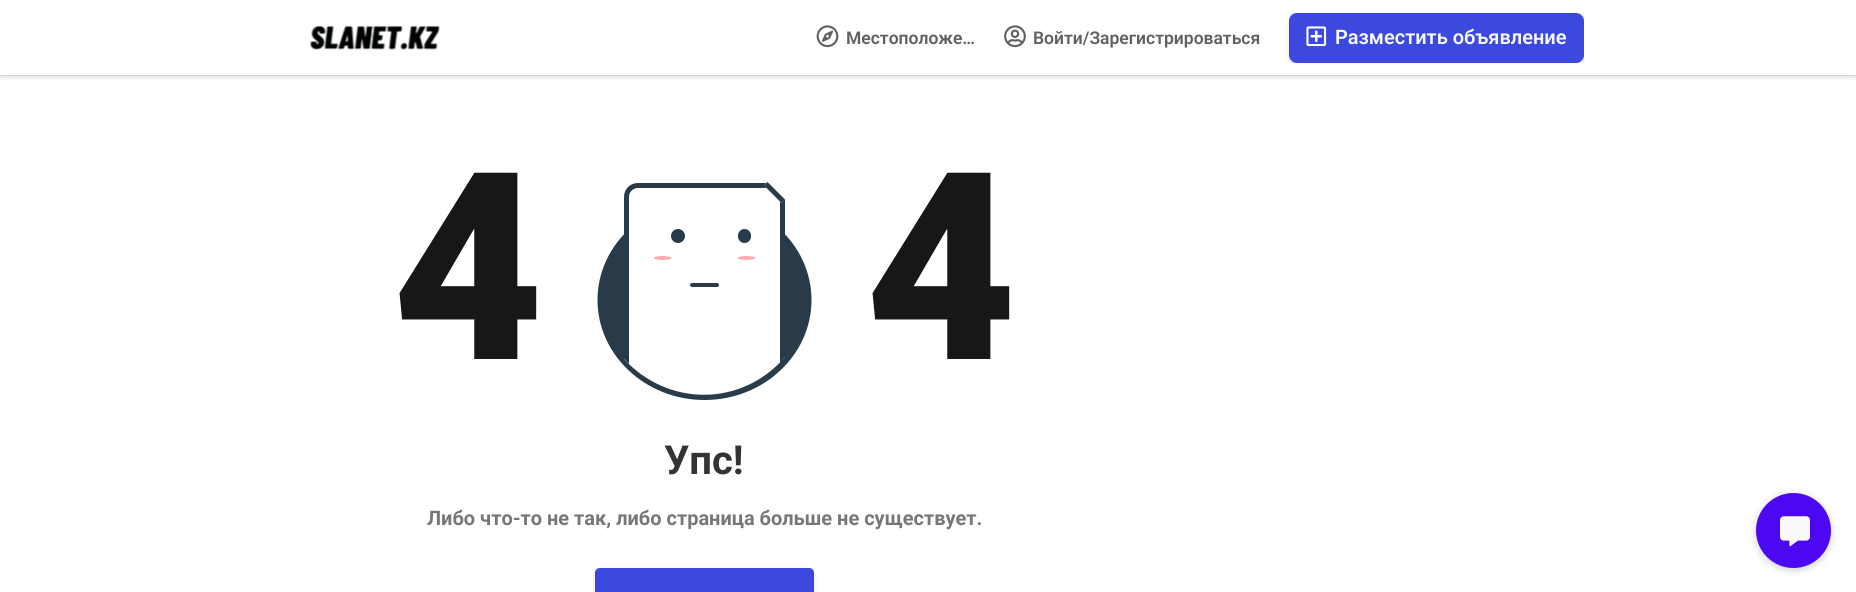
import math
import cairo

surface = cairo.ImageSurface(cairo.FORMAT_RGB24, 1856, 592)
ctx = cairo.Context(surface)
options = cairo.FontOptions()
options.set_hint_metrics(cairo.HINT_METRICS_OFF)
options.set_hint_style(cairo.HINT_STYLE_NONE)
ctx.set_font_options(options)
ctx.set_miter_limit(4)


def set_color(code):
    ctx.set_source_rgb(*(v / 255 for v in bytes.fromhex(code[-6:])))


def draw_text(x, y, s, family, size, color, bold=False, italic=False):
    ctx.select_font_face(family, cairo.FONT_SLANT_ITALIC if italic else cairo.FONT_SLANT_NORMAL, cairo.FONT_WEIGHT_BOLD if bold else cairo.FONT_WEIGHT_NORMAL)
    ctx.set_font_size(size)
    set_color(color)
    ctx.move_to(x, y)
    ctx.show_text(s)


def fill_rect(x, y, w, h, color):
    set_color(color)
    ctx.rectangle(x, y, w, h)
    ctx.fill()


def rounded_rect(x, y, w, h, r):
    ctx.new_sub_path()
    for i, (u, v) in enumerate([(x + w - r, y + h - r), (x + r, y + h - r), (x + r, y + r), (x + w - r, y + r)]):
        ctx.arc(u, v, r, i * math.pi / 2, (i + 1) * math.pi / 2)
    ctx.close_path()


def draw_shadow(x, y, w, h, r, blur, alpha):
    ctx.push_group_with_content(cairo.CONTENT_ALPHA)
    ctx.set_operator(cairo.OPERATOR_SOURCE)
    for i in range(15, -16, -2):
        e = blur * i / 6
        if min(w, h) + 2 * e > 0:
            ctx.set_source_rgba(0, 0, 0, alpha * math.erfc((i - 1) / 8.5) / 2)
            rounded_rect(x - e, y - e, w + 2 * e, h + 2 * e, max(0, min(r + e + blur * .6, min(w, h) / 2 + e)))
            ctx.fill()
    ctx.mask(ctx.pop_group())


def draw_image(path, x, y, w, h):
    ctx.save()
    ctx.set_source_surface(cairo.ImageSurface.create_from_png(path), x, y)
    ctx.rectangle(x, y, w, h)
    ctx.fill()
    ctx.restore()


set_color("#ffffff")
ctx.paint()
fill_rect(0, 75, 1856, 1, "#e6e6e6")
ctx.save()
ctx.rectangle(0, 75, 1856, 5)
ctx.clip()
set_color("#000000")
draw_shadow(0, 3, 1856, 75, 0, 2, 0.1)
ctx.restore()
draw_image("assets/img1.png", 310, 25, 131, 25)
draw_image("assets/img2.png", 816, 25, 23, 23)
draw_text(846, 44, "Местоположе…", "Roboto SemiBold", 17.5, "#606060")
draw_image("assets/img3.png", 1004, 25, 22, 23)
draw_text(1033, 44, "Войти/Зарегистрироваться", "Roboto SemiBold", 17.5, "#606060")
ctx.save()
ctx.rectangle(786, 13, 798, 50)
ctx.clip()
set_color("#000000")
draw_shadow(1289, 15, 295, 50, 8, 3, 0.1)
ctx.restore()
set_color("#3b49df")
rounded_rect(1289, 13, 295, 50, 8)
ctx.fill()
ctx.rectangle(1289.5, 13.5, 294, 49)
ctx.set_source_rgba(0, 0, 0, 0.05)
ctx.set_line_width(1)
ctx.stroke()
draw_image("assets/img4.png", 1306, 26, 21, 21)
draw_text(1335, 44, "Разместить объявление", "Roboto SemiBold", 20, "#f9f9f9")
draw_text(392, 359, "4", "Roboto Black", 262, "#171717")
set_color("#293b49")
ctx.new_path()
ctx.move_to(704.5, 200)
ctx.curve_to(763.5, 200, 811.5, 245, 811.5, 300)
ctx.curve_to(811.5, 355, 763.5, 400, 704.5, 400)
ctx.curve_to(645.5, 400, 597.5, 355, 597.5, 300)
ctx.curve_to(597.5, 245, 645.5, 200, 704.5, 200)
ctx.close_path()
ctx.fill()
set_color("#ffffff")
ctx.new_path()
ctx.move_to(638, 183)
ctx.line_to(771, 183)
ctx.curve_to(779, 183, 785, 189, 785, 197)
ctx.line_to(785, 357)
ctx.curve_to(742, 407, 668, 407, 624, 359)
ctx.line_to(624, 197)
ctx.curve_to(624, 189, 630, 183, 638, 183)
ctx.close_path()
ctx.fill()
set_color("#293b49")
ctx.new_path()
ctx.move_to(638, 183)
ctx.curve_to(630, 183, 624, 189, 624, 197)
ctx.line_to(624, 359)
ctx.line_to(629, 364)
ctx.line_to(629, 197)
ctx.curve_to(629, 192, 633, 188, 638, 188)
ctx.line_to(771, 188)
ctx.curve_to(776, 188, 780, 192, 780, 197)
ctx.line_to(780, 363)
ctx.line_to(785, 357)
ctx.line_to(785, 197)
ctx.curve_to(785, 189, 779, 183, 771, 183)
ctx.close_path()
ctx.fill()
set_color("#ffffff")
ctx.new_path()
ctx.move_to(776.5, 173)
ctx.line_to(793.5, 190.5)
ctx.line_to(781.5, 203)
ctx.line_to(764, 185.5)
ctx.close_path()
ctx.fill()
set_color("#293b49")
ctx.new_path()
ctx.move_to(767.5, 182)
ctx.line_to(785, 199.5)
ctx.line_to(781.5, 203)
ctx.line_to(764, 185.5)
ctx.close_path()
ctx.fill()
ctx.arc(678, 236, 7, 0, 2 * math.pi)
ctx.fill()
rounded_rect(738, 229, 13, 14, 6.5)
ctx.fill()
set_color("#fdabaf")
ctx.new_path()
ctx.move_to(662.5, 256)
ctx.curve_to(667.5, 256, 671.5, 257, 671.5, 258)
ctx.curve_to(671.5, 259, 667.5, 260, 662.5, 260)
ctx.curve_to(657.5, 260, 653.5, 259, 653.5, 258)
ctx.curve_to(653.5, 257, 657.5, 256, 662.5, 256)
ctx.close_path()
ctx.fill()
ctx.new_path()
ctx.move_to(746.5, 256)
ctx.curve_to(751.5, 256, 755.5, 257, 755.5, 258)
ctx.curve_to(755.5, 259, 751.5, 260, 746.5, 260)
ctx.curve_to(741.5, 260, 737.5, 259, 737.5, 258)
ctx.curve_to(737.5, 257, 741.5, 256, 746.5, 256)
ctx.close_path()
ctx.fill()
set_color("#293b49")
rounded_rect(690, 283, 29, 4, 2)
ctx.fill()
draw_text(865, 359, "4", "Roboto Black", 262, "#171717")
draw_text(664, 474, "Упс!", "Roboto", 40, "#363433", bold=True)
draw_text(427, 525, "Либо что-то не так, либо страница больше не существует.", "Roboto", 20, "#777777", bold=True)
set_color("#000000")
draw_shadow(595, 570, 219, 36, 5, 3, 0.1)
set_color("#3b49df")
rounded_rect(595, 568, 219, 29, 5)
ctx.fill()
ctx.rectangle(595.5, 568.5, 218, 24)
ctx.set_source_rgba(0, 0, 0, 0.05)
ctx.stroke()
set_color("#000000")
draw_shadow(1756, 495, 75, 75, 37.5, 4, 0.2)
set_color("#4d08f2")
ctx.arc(1793.5, 530.5, 37.5, 0, 2 * math.pi)
ctx.fill()
draw_image("assets/img5.png", 1780, 516, 30, 31)
surface.write_to_png("output.png")
